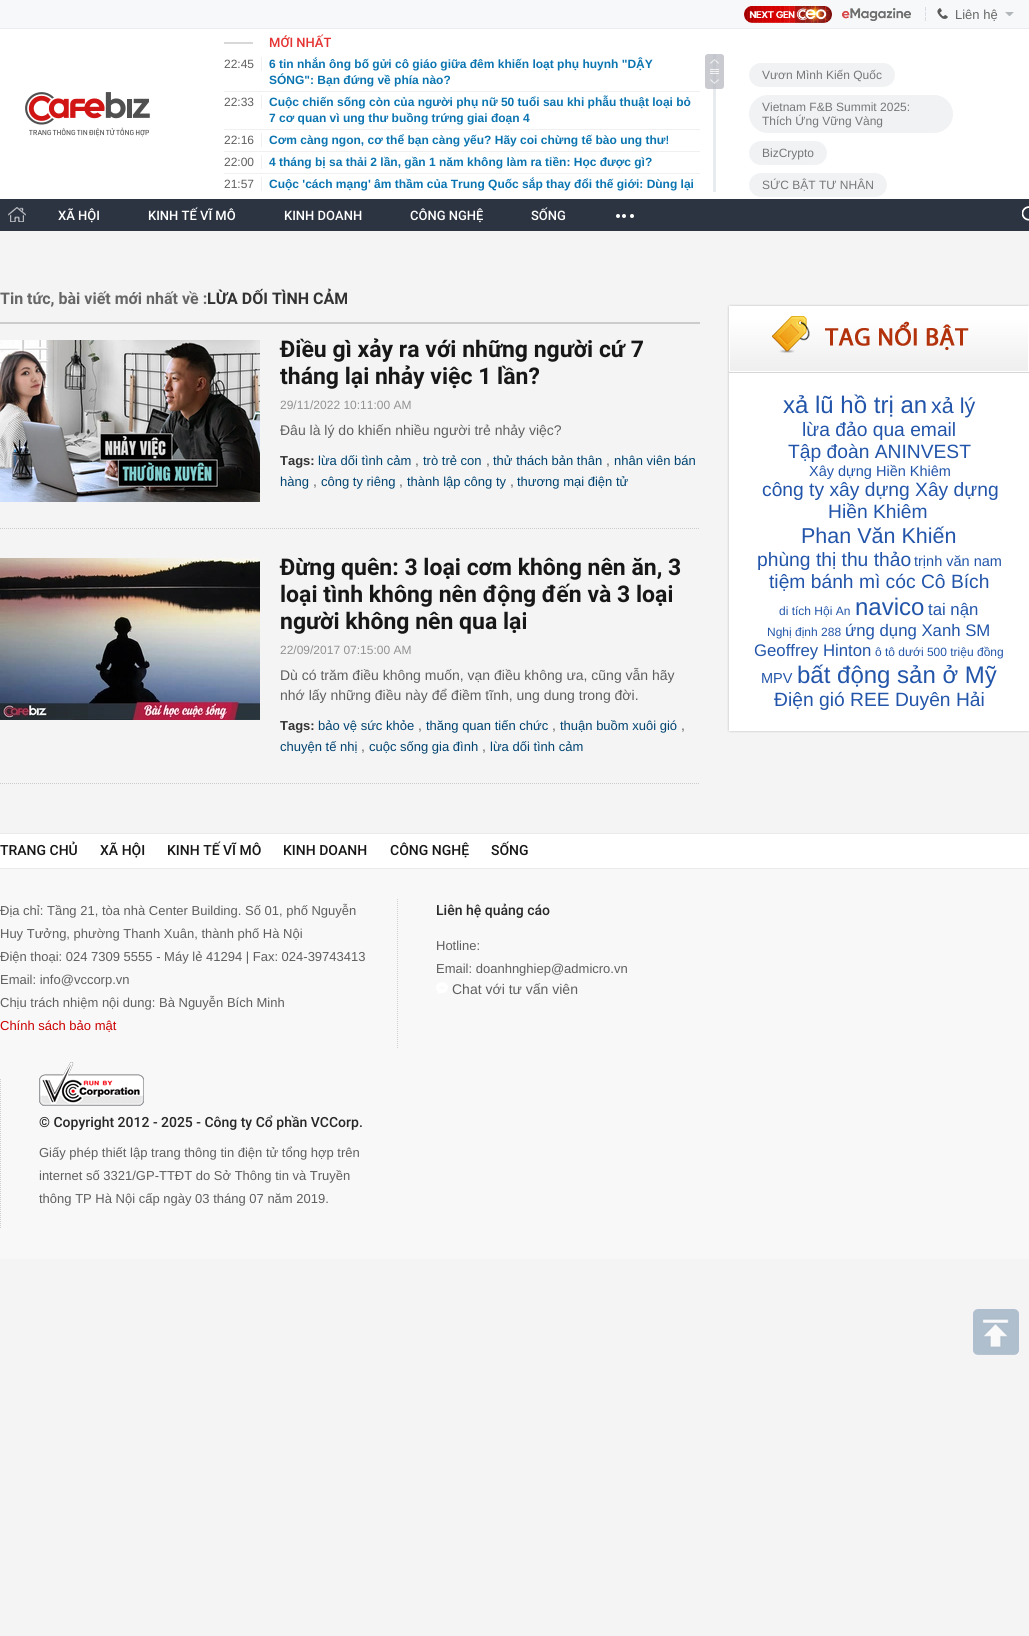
import math
import cairo

surface = cairo.ImageSurface(cairo.FORMAT_RGB24, 1029, 1636)
ctx = cairo.Context(surface)
options = cairo.FontOptions()
options.set_hint_metrics(cairo.HINT_METRICS_OFF)
options.set_hint_style(cairo.HINT_STYLE_NONE)
ctx.set_font_options(options)
ctx.set_miter_limit(4)


def set_color(code):
    ctx.set_source_rgb(*(v / 255 for v in bytes.fromhex(code[-6:])))


def draw_text(x, y, s, family, size, color, bold=False, italic=False):
    ctx.select_font_face(family, cairo.FONT_SLANT_ITALIC if italic else cairo.FONT_SLANT_NORMAL, cairo.FONT_WEIGHT_BOLD if bold else cairo.FONT_WEIGHT_NORMAL)
    ctx.set_font_size(size)
    set_color(color)
    ctx.move_to(x, y)
    ctx.show_text(s)


def fill_rect(x, y, w, h, color):
    set_color(color)
    ctx.rectangle(x, y, w, h)
    ctx.fill()


def rounded_rect(x, y, w, h, r):
    ctx.new_sub_path()
    for i, (u, v) in enumerate([(x + w - r, y + h - r), (x + r, y + h - r), (x + r, y + r), (x + w - r, y + r)]):
        ctx.arc(u, v, r, i * math.pi / 2, (i + 1) * math.pi / 2)
    ctx.close_path()


def draw_image(path, x, y, w, h):
    ctx.save()
    ctx.set_source_surface(cairo.ImageSurface.create_from_png(path), x, y)
    ctx.rectangle(x, y, w, h)
    ctx.fill()
    ctx.restore()


set_color("#f4f4f4")
ctx.paint()
fill_rect(0, 29, 1029, 170, "#ffffff")
fill_rect(0, 0, 1029, 28, "#f7f8f9")
fill_rect(0, 28, 1029, 1, "#eaecf1")
draw_image("assets/img1.png", 744, 6, 88, 17)
draw_image("assets/img2.png", 842, 8, 69, 13)
draw_image("assets/img3.png", 925, 7, 1, 14)
draw_image("assets/img4.png", 937, 8, 11, 11)
draw_text(955, 19, "Liên hệ", "Liberation Sans", 13, "#666666")
draw_image("assets/img5.png", 1005, 12, 9, 4)
draw_image("assets/img6.png", 25, 92, 125, 45)
fill_rect(224, 42, 29, 2, "#d8d8d8")
draw_text(269, 47, "MỚI NHẤT", "Roboto Medium", 13, "#e53333")
set_color("#e8ebee")
ctx.new_path()
ctx.move_to(714.5, 54)
ctx.curve_to(715.5, 54, 716, 54.5, 716, 55.5)
ctx.line_to(716, 192)
ctx.line_to(713, 192)
ctx.line_to(713, 55.5)
ctx.curve_to(713, 54.5, 713.5, 54, 714.5, 54)
ctx.close_path()
ctx.fill()
draw_image("assets/img7.png", 705, 54, 19, 35)
fill_rect(224, 91, 476, 1, "#f0f0f0")
fill_rect(261, 57, 1, 14, "#f0f0f0")
draw_text(224, 68, "22:45", "Liberation Sans", 12, "#5f5f5f")
draw_text(269, 68, "6 tin nhắn ông bố gửi cô giáo giữa đêm khiến loạt phụ huynh \"DẬY", "Liberation Sans", 12, "#0b75b1", bold=True)
draw_text(269, 84, "SÓNG\": Bạn đứng về phía nào?", "Liberation Sans", 12, "#0b75b1", bold=True)
fill_rect(224, 129, 476, 1, "#f0f0f0")
fill_rect(261, 95, 1, 14, "#f0f0f0")
draw_text(224, 106, "22:33", "Liberation Sans", 12, "#5f5f5f")
draw_text(269, 106, "Cuộc chiến sống còn của người phụ nữ 50 tuổi sau khi phẫu thuật loại bỏ", "Liberation Sans", 12, "#0b75b1", bold=True)
draw_text(269, 122, "7 cơ quan vì ung thư buồng trứng giai đoạn 4", "Liberation Sans", 12, "#0b75b1", bold=True)
fill_rect(224, 151, 476, 1, "#f0f0f0")
fill_rect(261, 133, 1, 14, "#f0f0f0")
draw_text(224, 144, "22:16", "Liberation Sans", 12, "#5f5f5f")
draw_text(269, 144, "Cơm càng ngon, cơ thể bạn càng yếu? Hãy coi chừng tế bào ung thư!", "Liberation Sans", 12, "#0b75b1", bold=True)
fill_rect(224, 173, 476, 1, "#f0f0f0")
fill_rect(261, 155, 1, 14, "#f0f0f0")
draw_text(224, 166, "22:00", "Liberation Sans", 12, "#5f5f5f")
draw_text(269, 166, "4 tháng bị sa thải 2 lần, gần 1 năm không làm ra tiền: Học được gì?", "Liberation Sans", 12, "#0b75b1", bold=True)
fill_rect(261, 177, 1, 14, "#f0f0f0")
draw_text(224, 188, "21:57", "Liberation Sans", 12, "#5f5f5f")
draw_text(269, 188, "Cuộc 'cách mạng' âm thầm của Trung Quốc sắp thay đổi thế giới: Dùng lại", "Liberation Sans", 12, "#0b75b1", bold=True)
set_color("#f0f2f4")
rounded_rect(749, 63, 146, 24, 12)
ctx.fill()
draw_text(762, 79, "Vươn Mình Kiến Quốc", "Liberation Sans", 12, "#777777")
set_color("#f0f2f4")
rounded_rect(749, 95, 204, 38, 19)
ctx.fill()
draw_text(762, 111, "Vietnam F&B Summit 2025:", "Liberation Sans", 12, "#777777")
draw_text(762, 125, "Thích Ứng Vững Vàng", "Liberation Sans", 12, "#777777")
set_color("#f0f2f4")
rounded_rect(749, 141, 78, 24, 12)
ctx.fill()
draw_text(762, 157, "BizCrypto", "Liberation Sans", 12, "#777777")
set_color("#f0f2f4")
rounded_rect(749, 173, 138, 24, 12)
ctx.fill()
draw_text(762, 189, "SỨC BẬT TƯ NHÂN", "Liberation Sans", 12, "#777777")
fill_rect(0, 199, 1029, 32, "#2c3442")
draw_image("assets/img8.png", 8, 207, 18, 15)
draw_text(58, 220, "XÃ HỘI", "Roboto Medium", 13, "#ffffff")
draw_text(148, 220, "KINH TẾ VĨ MÔ", "Roboto Medium", 13, "#ffffff")
draw_text(284, 220, "KINH DOANH", "Roboto Medium", 13, "#ffffff")
draw_text(410, 220, "CÔNG NGHỆ", "Roboto Medium", 13, "#ffffff")
draw_text(531, 220, "SỐNG", "Roboto Medium", 13, "#ffffff")
ctx.new_path()
ctx.arc(618, 216, 2, 0, 2 * math.pi)
ctx.fill()
ctx.arc(624, 216, 2, 0, 2 * math.pi)
ctx.fill()
ctx.arc(632, 216, 2, 0, 2 * math.pi)
ctx.fill()
draw_image("assets/img9.png", 1022, 206, 7, 15)
fill_rect(0, 322, 700, 2, "#cccccc")
draw_text(0, 304, "Tin tức, bài viết mới nhất về :", "Roboto", 16, "#666666", bold=True)
draw_text(207, 304, "LỪA DỐI TÌNH CẢM", "Roboto", 16, "#333333", bold=True)
ctx.new_path()
ctx.move_to(0, 528.5)
ctx.line_to(700, 528.5)
set_color("#cccccc")
ctx.set_line_width(1)
ctx.set_dash([1, 1])
ctx.stroke()
draw_image("assets/img10.png", 0, 340, 260, 162)
draw_text(280, 357, "Điều gì xảy ra với những người cứ 7", "Roboto", 23, "#171717", bold=True)
draw_text(280, 384, "tháng lại nhảy việc 1 lần?", "Roboto", 23, "#171717", bold=True)
draw_text(280, 409, "29/11/2022 10:11:00 AM", "Liberation Sans", 12, "#929292")
draw_text(280, 435, "Đâu là lý do khiến nhiều người trẻ nhảy việc?", "Liberation Sans", 14, "#5f5f5f")
draw_text(280, 465, "Tags:", "Liberation Sans", 13, "#333333", bold=True)
draw_text(318, 465, "lừa dối tình cảm", "Liberation Sans", 13, "#004370")
draw_text(415, 465, ",", "Liberation Sans", 14, "#5f5f5f")
draw_text(423, 465, "trò trẻ con", "Liberation Sans", 13, "#004370")
draw_text(486, 465, ",", "Liberation Sans", 14, "#5f5f5f")
draw_text(493, 465, "thử thách bản thân", "Liberation Sans", 13, "#004370")
draw_text(606, 465, ",", "Liberation Sans", 14, "#5f5f5f")
draw_text(614, 465, "nhân viên bán", "Liberation Sans", 13, "#004370")
draw_text(280, 486, "hàng", "Liberation Sans", 13, "#004370")
draw_text(313, 486, ",", "Liberation Sans", 14, "#5f5f5f")
draw_text(321, 486, "công ty riêng", "Liberation Sans", 13, "#004370")
draw_text(399, 486, ",", "Liberation Sans", 14, "#5f5f5f")
draw_text(407, 486, "thành lập công ty", "Liberation Sans", 13, "#004370")
draw_text(510, 486, ",", "Liberation Sans", 14, "#5f5f5f")
draw_text(517, 486, "thương mại điện tử", "Liberation Sans", 13, "#004370")
ctx.new_path()
ctx.move_to(0, 783.5)
ctx.line_to(700, 783.5)
set_color("#cccccc")
ctx.stroke()
draw_image("assets/img11.png", 0, 558, 260, 162)
draw_text(280, 575, "Đừng quên: 3 loại cơm không nên ăn, 3", "Roboto", 23, "#171717", bold=True)
draw_text(280, 602, "loại tình không nên động đến và 3 loại", "Roboto", 23, "#171717", bold=True)
draw_text(280, 629, "người không nên qua lại", "Roboto", 23, "#171717", bold=True)
draw_text(280, 654, "22/09/2017 07:15:00 AM", "Liberation Sans", 12, "#929292")
draw_text(280, 680, "Dù có trăm điều không muốn, vạn điều không ưa, cũng vẫn hãy", "Liberation Sans", 14, "#5f5f5f")
draw_text(280, 700, "nhớ lấy những điều này để điềm tĩnh, ung dung trong đời.", "Liberation Sans", 14, "#5f5f5f")
draw_text(280, 730, "Tags:", "Liberation Sans", 13, "#333333", bold=True)
draw_text(318, 730, "bảo vệ sức khỏe", "Liberation Sans", 13, "#004370")
draw_text(418, 730, ",", "Liberation Sans", 14, "#5f5f5f")
draw_text(426, 730, "thăng quan tiến chức", "Liberation Sans", 13, "#004370")
draw_text(552, 730, ",", "Liberation Sans", 14, "#5f5f5f")
draw_text(560, 730, "thuận buồm xuôi gió", "Liberation Sans", 13, "#004370")
draw_text(681, 730, ",", "Liberation Sans", 14, "#5f5f5f")
draw_text(280, 751, "chuyện tế nhị", "Liberation Sans", 13, "#004370")
draw_text(361, 751, ",", "Liberation Sans", 14, "#5f5f5f")
draw_text(369, 751, "cuộc sống gia đình", "Liberation Sans", 13, "#004370")
draw_text(482, 751, ",", "Liberation Sans", 14, "#5f5f5f")
draw_text(490, 751, "lừa dối tình cảm", "Liberation Sans", 13, "#004370")
draw_image("assets/img12.png", 727, 304, 302, 3)
draw_image("assets/img13.png", 727, 307, 302, 422)
draw_image("assets/img14.png", 730, 316, 298, 55)
fill_rect(729, 372, 300, 1, "#d6d6d6")
draw_text(783, 413, "xả lũ hồ trị an", "Liberation Sans", 24, "#2255aa")
draw_text(931, 413, "xả lý", "Liberation Sans", 21.5, "#2255aa")
draw_text(802, 436, "lừa đảo qua email", "Liberation Sans", 19.25, "#2255aa")
draw_text(788, 458, "Tập đoàn ANINVEST", "Liberation Sans", 19.25, "#2255aa")
draw_text(809, 476, "Xây dựng Hiền Khiêm", "Liberation Sans", 14.5, "#2255aa")
draw_text(762, 496, "công ty xây dựng Xây dựng", "Liberation Sans", 19.25, "#2255aa")
draw_text(828, 518, "Hiền Khiêm", "Liberation Sans", 19.25, "#2255aa")
draw_text(801, 543, "Phan Văn Khiến", "Liberation Sans", 21.5, "#2255aa")
draw_text(757, 566, "phùng thị thu thảo", "Liberation Sans", 19.25, "#2255aa")
draw_text(914, 566, "trịnh văn nam", "Liberation Sans", 14.5, "#2255aa")
draw_text(769, 588, "tiệm bánh mì cóc Cô Bích", "Liberation Sans", 19.25, "#2255aa")
draw_text(779, 615, "di tích Hội An", "Liberation Sans", 12, "#2255aa")
draw_text(855, 615, "navico", "Liberation Sans", 24, "#2255aa")
draw_text(928, 615, "tai nận", "Liberation Sans", 16.75, "#2255aa")
draw_text(767, 636, "Nghị định 288", "Liberation Sans", 12, "#2255aa")
draw_text(845, 636, "ứng dụng Xanh SM", "Liberation Sans", 16.75, "#2255aa")
draw_text(754, 656, "Geoffrey Hinton", "Liberation Sans", 16.75, "#2255aa")
draw_text(875, 656, "ô tô dưới 500 triệu đồng", "Liberation Sans", 12, "#2255aa")
draw_text(761, 683, "MPV", "Liberation Sans", 14.5, "#2255aa")
draw_text(797, 683, "bất động sản ở Mỹ", "Liberation Sans", 24, "#2255aa")
draw_text(774, 706, "Điện gió REE Duyên Hải", "Liberation Sans", 19.25, "#2255aa")
draw_image("assets/img15.png", 727, 729, 302, 4)
fill_rect(0, 869, 1029, 390, "#f8f8f9")
fill_rect(0, 834, 1029, 34, "#ffffff")
fill_rect(0, 833, 1029, 1, "#eaeaea")
fill_rect(0, 868, 1029, 1, "#eaeaea")
draw_text(0, 855, "TRANG CHỦ", "Roboto Medium", 14, "#171717")
draw_text(100, 855, "XÃ HỘI", "Roboto Medium", 14, "#171717")
draw_text(167, 855, "KINH TẾ VĨ MÔ", "Roboto Medium", 14, "#171717")
draw_text(283, 855, "KINH DOANH", "Roboto Medium", 14, "#171717")
draw_text(390, 855, "CÔNG NGHỆ", "Roboto Medium", 14, "#171717")
draw_text(491, 855, "SỐNG", "Roboto Medium", 14, "#171717")
draw_text(0, 915, "Địa chỉ: Tầng 21, tòa nhà Center Building. Số 01, phố Nguyễn", "Liberation Sans", 13, "#5f5f5f")
draw_text(0, 938, "Huy Tưởng, phường Thanh Xuân, thành phố Hà Nội", "Liberation Sans", 13, "#5f5f5f")
draw_text(0, 961, "Điện thoại: 024 7309 5555 - Máy lẻ 41294 | Fax: 024-39743413", "Liberation Sans", 13, "#5f5f5f")
draw_text(0, 984, "Email: info@vccorp.vn", "Liberation Sans", 13, "#5f5f5f")
draw_text(0, 1007, "Chịu trách nhiệm nội dung: Bà Nguyễn Bích Minh", "Liberation Sans", 13, "#5f5f5f")
draw_text(0, 1030, "Chính sách bảo mật", "Liberation Sans", 13, "#cc0000")
ctx.new_path()
ctx.move_to(397.5, 899)
ctx.line_to(397.5, 1049)
set_color("#d0d0d1")
ctx.stroke()
draw_text(436, 915, "Liên hệ quảng cáo", "Roboto Medium", 14, "#282828")
draw_text(436, 950, "Hotline:", "Liberation Sans", 13, "#5f5f5f")
draw_text(436, 973, "Email: doanhnghiep@admicro.vn", "Liberation Sans", 13, "#5f5f5f")
draw_image("assets/img16.png", 436, 982, 12, 12)
draw_text(452, 994, "Chat với tư vấn viên", "Liberation Sans", 14, "#5f5f5f")
ctx.new_path()
ctx.move_to(0.5, 1079)
ctx.line_to(0.5, 1229)
set_color("#d0d0d1")
ctx.stroke()
draw_image("assets/img17.png", 39, 1062, 105, 44)
draw_text(39, 1127, "© Copyright 2012 - 2025 - Công ty Cổ phần VCCorp.", "Roboto Medium", 14, "#282828")
draw_text(39, 1157, "Giấy phép thiết lập trang thông tin điện tử tổng hợp trên", "Liberation Sans", 13, "#5f5f5f")
draw_text(39, 1180, "internet số 3321/GP-TTĐT do Sở Thông tin và Truyền", "Liberation Sans", 13, "#5f5f5f")
draw_text(39, 1203, "thông TP Hà Nội cấp ngày 03 tháng 07 năm 2019.", "Liberation Sans", 13, "#5f5f5f")
draw_image("assets/img18.png", 973, 1309, 46, 46)
surface.write_to_png("output.png")
